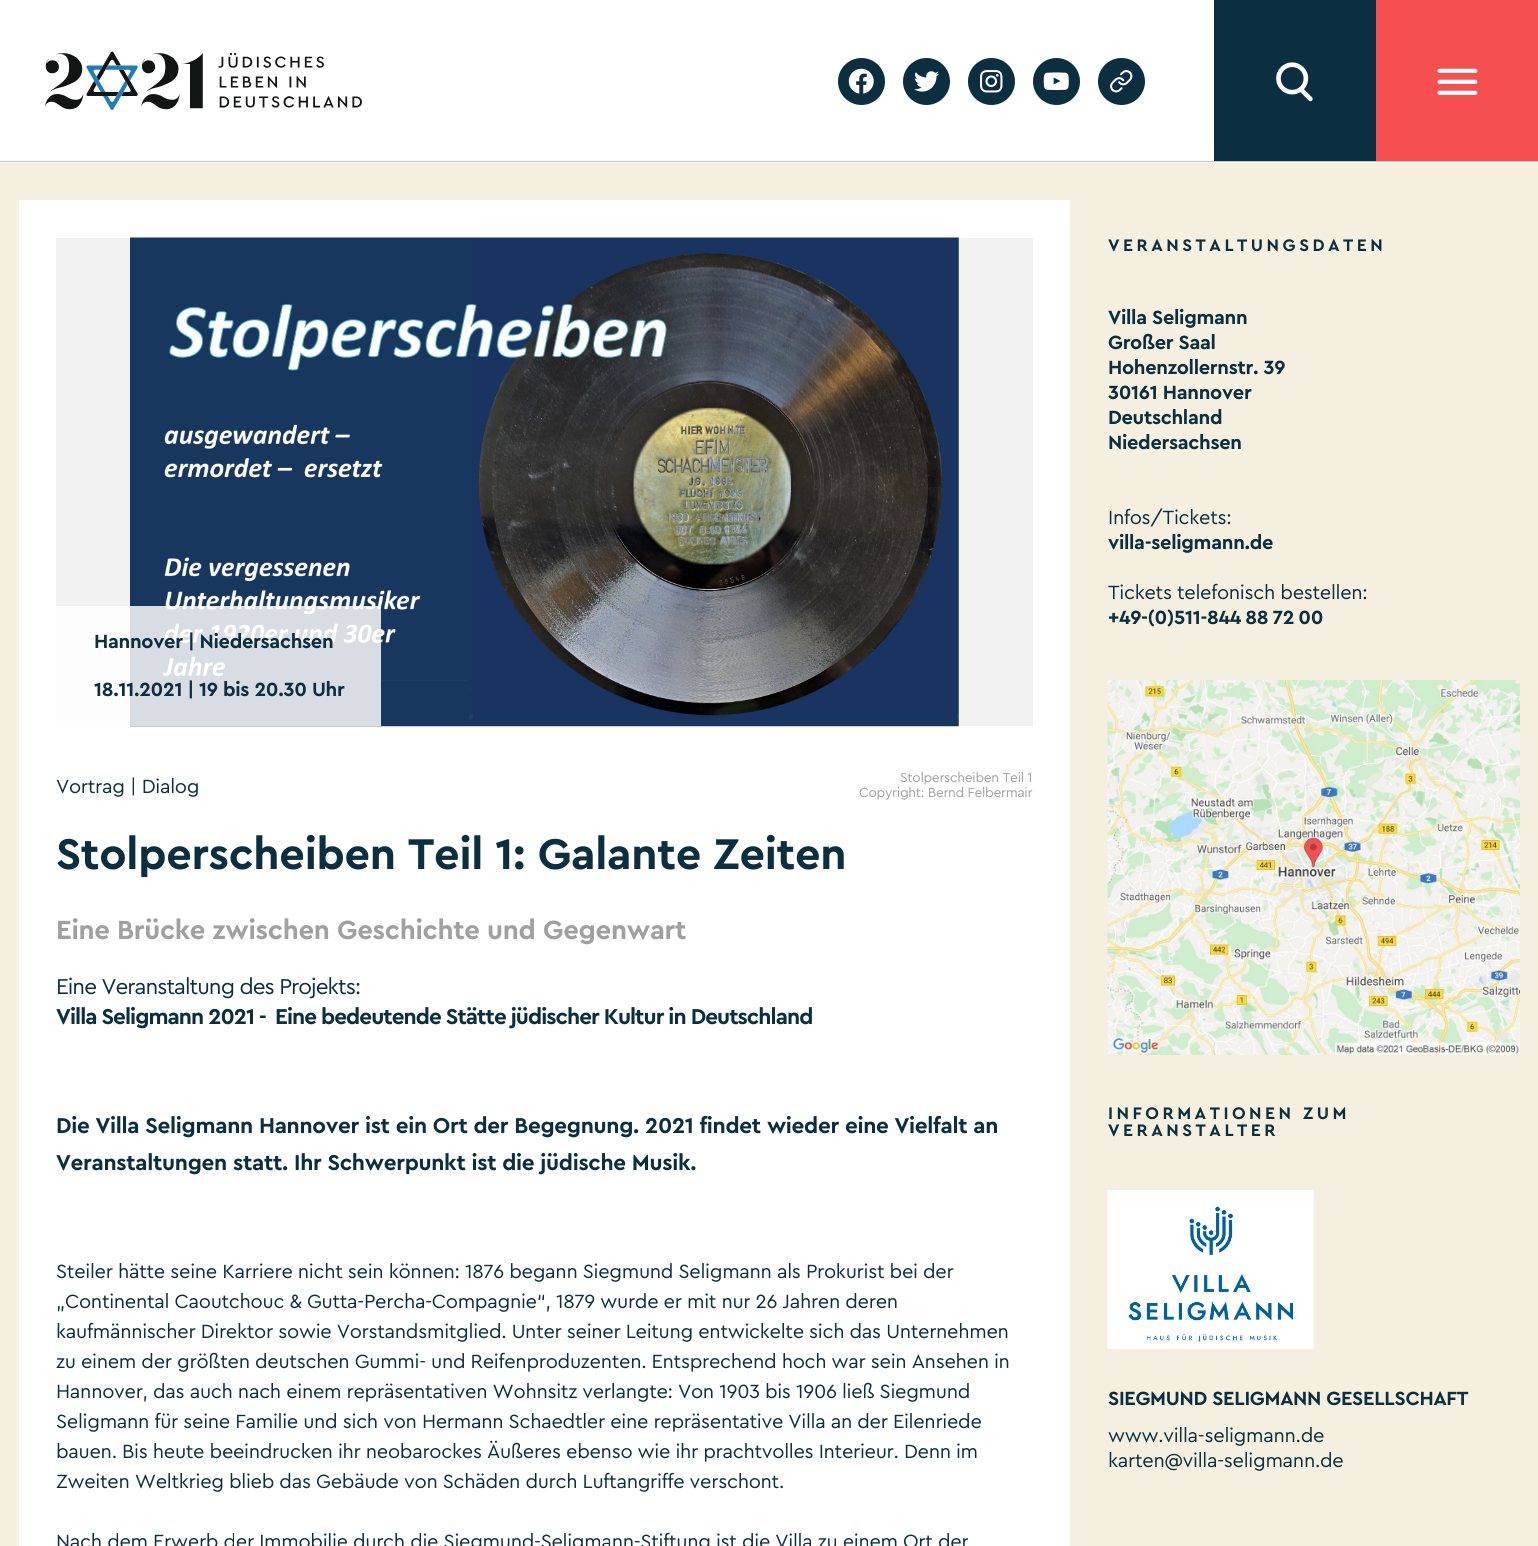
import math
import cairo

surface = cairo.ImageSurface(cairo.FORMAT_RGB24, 1538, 1546)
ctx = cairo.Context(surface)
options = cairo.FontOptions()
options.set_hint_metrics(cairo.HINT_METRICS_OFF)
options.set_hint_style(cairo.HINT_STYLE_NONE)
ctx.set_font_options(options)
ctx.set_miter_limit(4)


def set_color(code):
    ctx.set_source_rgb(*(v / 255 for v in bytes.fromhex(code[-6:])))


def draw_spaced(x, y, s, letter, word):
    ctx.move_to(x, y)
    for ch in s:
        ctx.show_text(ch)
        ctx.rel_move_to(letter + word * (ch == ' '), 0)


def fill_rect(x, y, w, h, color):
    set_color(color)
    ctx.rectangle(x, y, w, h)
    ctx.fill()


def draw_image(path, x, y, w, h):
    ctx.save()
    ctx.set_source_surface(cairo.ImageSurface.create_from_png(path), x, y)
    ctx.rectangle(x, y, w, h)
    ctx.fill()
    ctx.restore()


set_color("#f5efe0")
ctx.paint()
fill_rect(0, 0, 1538, 163, "#ffffff")
fill_rect(0, 161, 1538, 1, "#c3c3c3")
draw_image("assets/img1.png", 45, 51, 317, 59)
set_color("#0b2f41")
ctx.arc(861.5, 81.5, 23.5, 0, 2 * math.pi)
ctx.fill()
draw_image("assets/img2.png", 848, 68, 26, 26)
ctx.arc(926.5, 81.5, 23.5, 0, 2 * math.pi)
ctx.fill()
draw_image("assets/img3.png", 914, 71, 25, 21)
ctx.arc(991.5, 81.5, 23.5, 0, 2 * math.pi)
ctx.fill()
draw_image("assets/img4.png", 980, 70, 23, 23)
ctx.arc(1056.5, 81.5, 23.5, 0, 2 * math.pi)
ctx.fill()
draw_image("assets/img5.png", 1043, 72, 26, 19)
ctx.arc(1121.5, 81.5, 23.5, 0, 2 * math.pi)
ctx.fill()
draw_image("assets/img6.png", 1110, 70, 23, 23)
fill_rect(1214, 0, 162, 161, "#0b2f41")
draw_image("assets/img7.png", 1276, 62, 37, 40)
fill_rect(1376, 0, 162, 161, "#f64f50")
draw_image("assets/img8.png", 1437, 68, 41, 27)
fill_rect(19, 200, 1051, 1346, "#ffffff")
fill_rect(56, 238, 977, 488, "#f2f2f2")
draw_image("assets/img9.png", 130, 237, 829, 490)
ctx.set_source_rgba(1, 1, 1, 0.83)
ctx.rectangle(56, 606, 325, 120)
ctx.fill()
ctx.select_font_face("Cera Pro", cairo.FONT_SLANT_NORMAL, cairo.FONT_WEIGHT_BOLD)
ctx.set_font_size(20)
set_color("#0b2f41")
draw_spaced(94, 648, "Hannover | Niedersachsen", -0.3, 0)
draw_spaced(94, 696, "18.11.2021 | 19 bis 20.30 Uhr", -0.3, 0)
ctx.select_font_face("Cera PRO")
ctx.set_font_size(13.75)
set_color("#a0a0a0")
draw_spaced(900, 782, "Stolperscheiben Teil 1", -0.3, 0)
draw_spaced(859, 797, "Copyright: Bernd Felbermair", -0.3, 0)
ctx.set_font_size(20)
set_color("#0b2f41")
draw_spaced(56, 793, "Vortrag | Dialog", -0.3, 0)
ctx.select_font_face("Cera Pro", cairo.FONT_SLANT_NORMAL, cairo.FONT_WEIGHT_BOLD)
ctx.set_font_size(45)
draw_spaced(56, 869, "Stolperscheiben Teil 1: Galante Zeiten", -0.3, 0)
ctx.set_font_size(27.5)
set_color("#a0a0a0")
draw_spaced(56, 939, "Eine Brücke zwischen Geschichte und Gegenwart", -0.3, 0)
ctx.select_font_face("Cera PRO")
ctx.set_font_size(22.5)
set_color("#0b2f41")
draw_spaced(56, 994, "Eine Veranstaltung des Projekts:", -0.95, 0)
ctx.select_font_face("Cera Pro", cairo.FONT_SLANT_NORMAL, cairo.FONT_WEIGHT_BOLD)
draw_spaced(56, 1024, "Villa Seligmann 2021 -", -0.95, -0.4)
draw_spaced(275, 1024, "Eine bedeutende Stätte jüdischer Kultur in Deutschland", -0.95, -0.4)
draw_spaced(56, 1133, "Die Villa Seligmann Hannover ist ein Ort der Begegnung. 2021 findet wieder eine Vielfalt an", -0.3, 0)
draw_spaced(56, 1170, "Veranstaltungen statt. Ihr Schwerpunkt ist die jüdische Musik.", -0.3, 0)
ctx.select_font_face("Cera PRO")
ctx.set_font_size(20)
draw_spaced(56, 1278, "Steiler hätte seine Karriere nicht sein können: 1876 begann Siegmund Seligmann als Prokurist bei der", -0.3, 0)
draw_spaced(56, 1308, "„Continental Caoutchouc & Gutta-Percha-Compagnie“, 1879 wurde er mit nur 26 Jahren deren", -0.3, 0)
draw_spaced(56, 1338, "kaufmännischer Direktor sowie Vorstandsmitglied. Unter seiner Leitung entwickelte sich das Unternehmen", -0.3, 0)
draw_spaced(56, 1368, "zu einem der größten deutschen Gummi- und Reifenproduzenten. Entsprechend hoch war sein Ansehen in", -0.3, 0)
draw_spaced(56, 1398, "Hannover, das auch nach einem repräsentativen Wohnsitz verlangte: Von 1903 bis 1906 ließ Siegmund", -0.3, 0)
draw_spaced(56, 1428, "Seligmann für seine Familie und sich von Hermann Schaedtler eine repräsentative Villa an der Eilenriede", -0.3, 0)
draw_spaced(56, 1458, "bauen. Bis heute beeindrucken ihr neobarockes Äußeres ebenso wie ihr prachtvolles Interieur. Denn im", -0.3, 0)
draw_spaced(56, 1488, "Zweiten Weltkrieg blieb das Gebäude von Schäden durch Luftangriffe verschont.", -0.3, 0)
draw_spaced(56, 1548, "Nach dem Erwerb der Immobilie durch die Siegmund-Seligmann-Stiftung ist die Villa zu einem Ort der", -0.3, 0)
ctx.select_font_face("Cera Pro", cairo.FONT_SLANT_NORMAL, cairo.FONT_WEIGHT_BOLD)
ctx.set_font_size(17.5)
draw_spaced(1108, 251, "VERANSTALTUNGSDATEN", 3.5, 0)
ctx.set_font_size(20)
draw_spaced(1108, 324, "Villa Seligmann", -0.3, 0)
draw_spaced(1108, 349, "Großer Saal", -0.3, 0)
draw_spaced(1108, 374, "Hohenzollernstr. 39", -0.3, 0)
draw_spaced(1108, 399, "30161 Hannover", -0.3, 0)
draw_spaced(1108, 424, "Deutschland", -0.3, 0)
draw_spaced(1108, 449, "Niedersachsen", -0.3, 0)
ctx.select_font_face("Cera PRO")
draw_spaced(1108, 524, "Infos/Tickets:", -0.3, 0)
ctx.select_font_face("Cera Pro", cairo.FONT_SLANT_NORMAL, cairo.FONT_WEIGHT_BOLD)
draw_spaced(1108, 549, "villa-seligmann.de", -0.3, 0)
ctx.select_font_face("Cera PRO")
draw_spaced(1108, 599, "Tickets telefonisch bestellen:", -0.3, 0)
ctx.select_font_face("Cera Pro", cairo.FONT_SLANT_NORMAL, cairo.FONT_WEIGHT_BOLD)
draw_spaced(1108, 624, "+49-(0)511-844 88 72 00", -0.3, -1)
draw_image("assets/img10.png", 1107, 680, 413, 375)
ctx.set_font_size(17.5)
draw_spaced(1108, 1119, "INFORMATIONEN ZUM", 3.5, 0)
draw_spaced(1108, 1136, "VERANSTALTER", 3.5, 0)
draw_image("assets/img11.png", 1107, 1190, 207, 159)
ctx.set_font_size(20)
draw_spaced(1108, 1405, "SIEGMUND SELIGMANN GESELLSCHAFT", -0.3, 0)
ctx.select_font_face("Cera PRO")
draw_spaced(1108, 1442, "www.villa-seligmann.de", -0.3, 0)
draw_spaced(1108, 1467, "karten@villa-seligmann.de", -0.3, 0)
surface.write_to_png("output.png")
